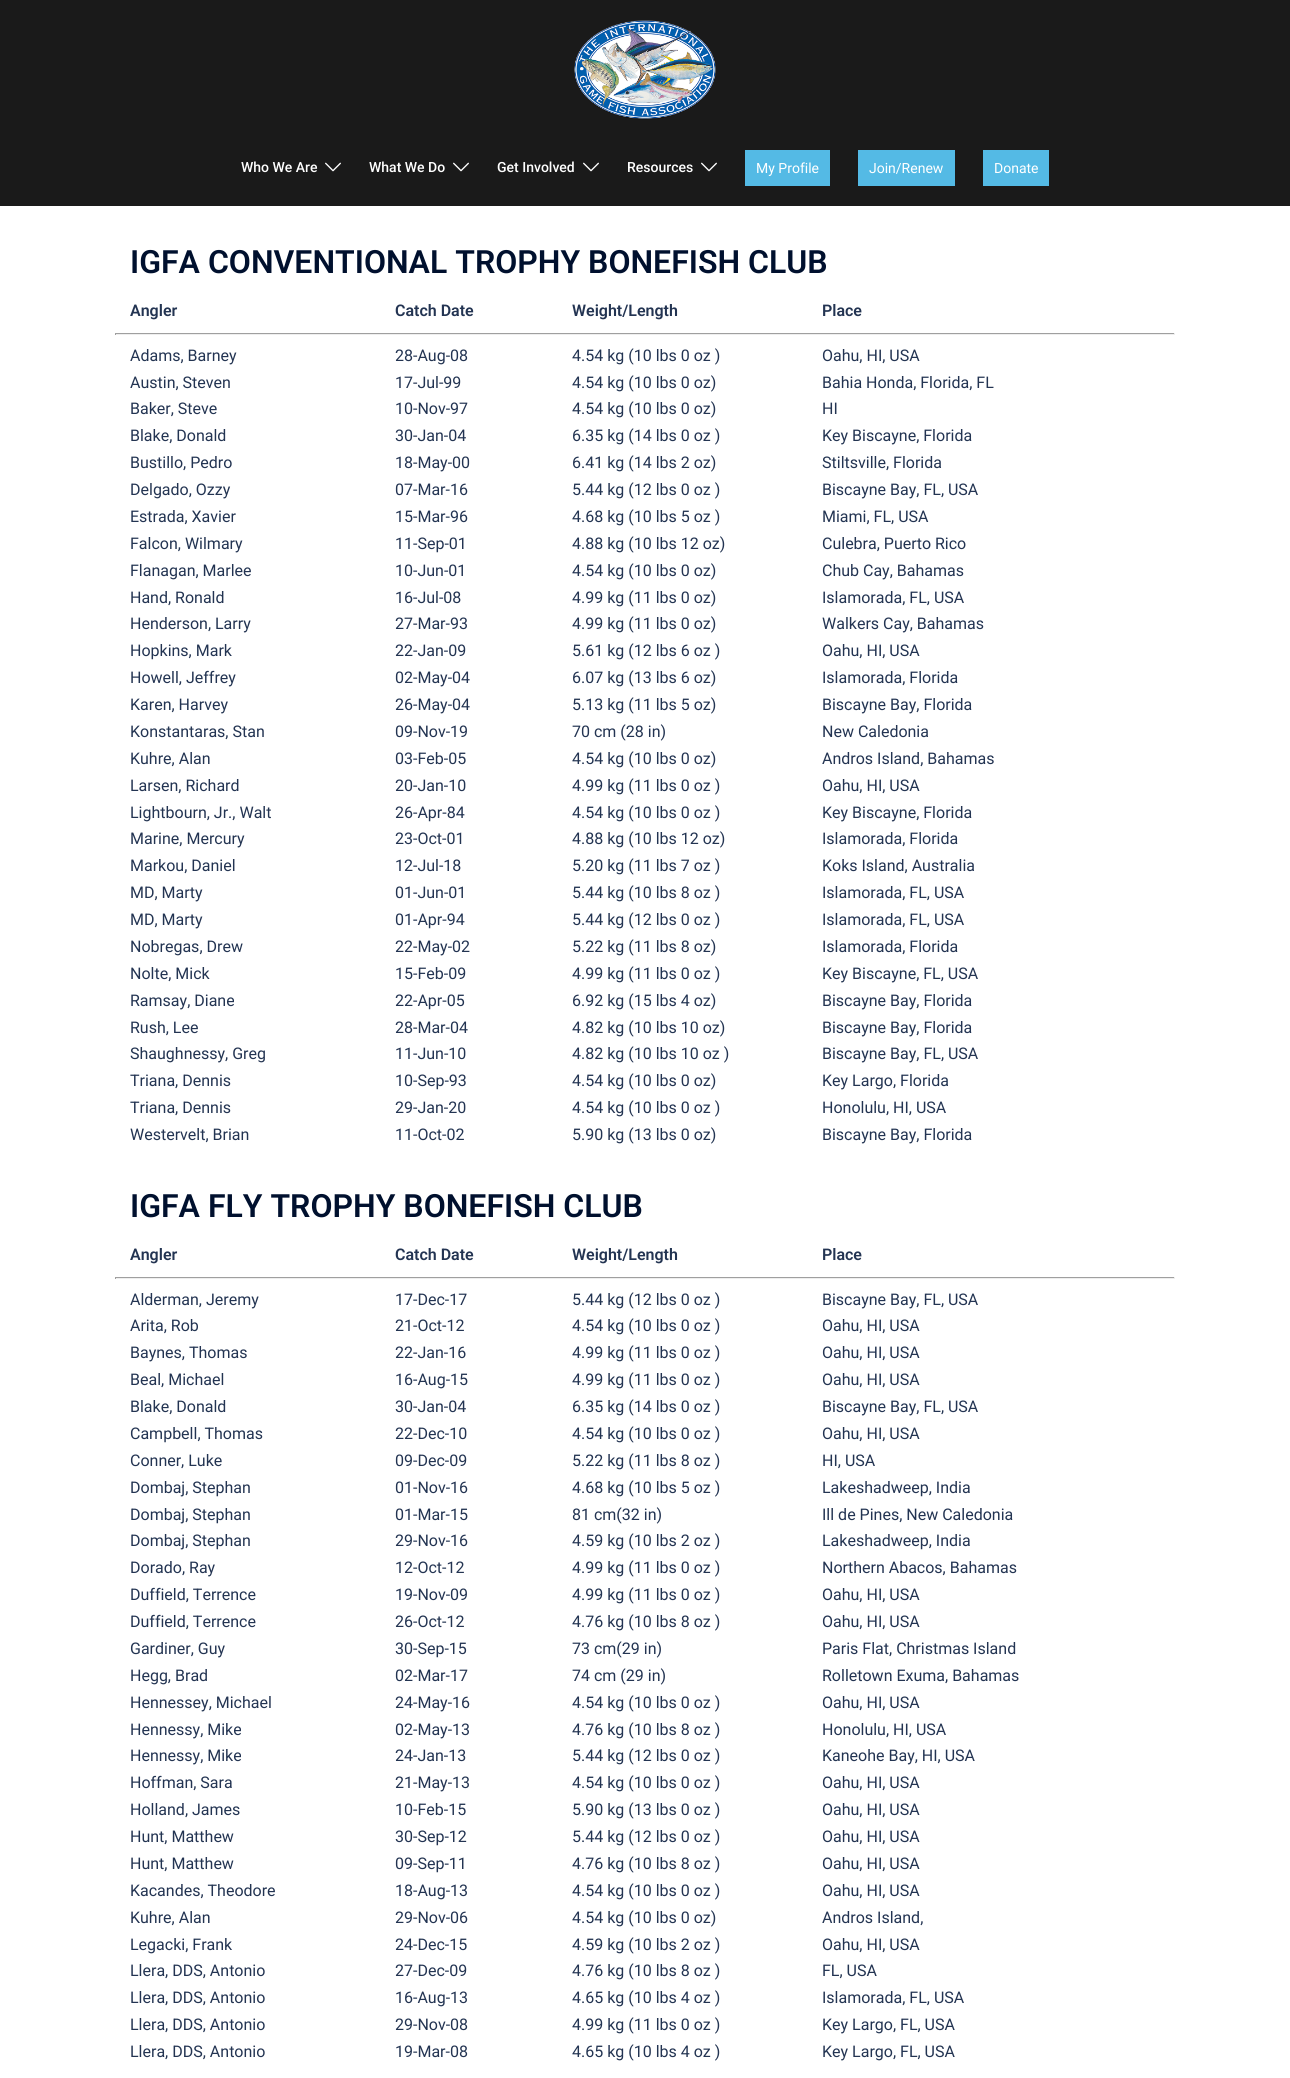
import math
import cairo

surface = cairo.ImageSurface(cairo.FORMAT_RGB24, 1290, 2078)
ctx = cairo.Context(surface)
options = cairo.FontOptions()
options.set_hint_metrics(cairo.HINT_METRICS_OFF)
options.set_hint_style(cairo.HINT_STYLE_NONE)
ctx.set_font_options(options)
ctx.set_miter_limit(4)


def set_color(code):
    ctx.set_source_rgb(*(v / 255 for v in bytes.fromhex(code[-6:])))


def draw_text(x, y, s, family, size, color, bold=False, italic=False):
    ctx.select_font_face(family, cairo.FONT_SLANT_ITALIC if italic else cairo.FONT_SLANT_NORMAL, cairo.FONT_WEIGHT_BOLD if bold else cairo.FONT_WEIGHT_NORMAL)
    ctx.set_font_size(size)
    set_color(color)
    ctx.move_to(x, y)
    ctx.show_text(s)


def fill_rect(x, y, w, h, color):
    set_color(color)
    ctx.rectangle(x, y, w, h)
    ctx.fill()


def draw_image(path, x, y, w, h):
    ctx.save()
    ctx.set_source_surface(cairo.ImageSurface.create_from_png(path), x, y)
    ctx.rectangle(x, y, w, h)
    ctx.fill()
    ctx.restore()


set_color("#ffffff")
ctx.paint()
fill_rect(0, 0, 1290, 206, "#1a1a1a")
draw_image("assets/img1.png", 574, 20, 142, 100)
draw_text(241, 172, "Who We Are", "Roboto Medium", 14, "#ffffff")
draw_image("assets/img2.png", 325, 162, 16, 10)
draw_text(369, 172, "What We Do", "Roboto Medium", 14, "#ffffff")
draw_image("assets/img2.png", 453, 162, 16, 10)
draw_text(497, 172, "Get Involved", "Roboto Medium", 14, "#ffffff")
draw_image("assets/img2.png", 583, 162, 16, 10)
draw_text(627, 172, "Resources", "Roboto Medium", 14, "#ffffff")
draw_image("assets/img2.png", 701, 162, 16, 10)
fill_rect(745, 150, 85, 36, "#54bae5")
draw_text(756, 173, "My Profile", "Roboto", 14, "#ffffff")
fill_rect(858, 150, 97, 36, "#54bae5")
draw_text(869, 173, "Join/Renew", "Roboto", 14, "#ffffff")
fill_rect(983, 150, 66, 36, "#54bae5")
draw_text(994, 173, "Donate", "Roboto", 14, "#ffffff")
draw_text(130, 273, "IGFA CONVENTIONAL TROPHY BONEFISH CLUB", "Roboto SemiBold", 32, "#00102e")
draw_text(130, 316, "Angler", "Roboto SemiBold", 16, "#233452")
draw_text(395, 316, "Catch Date", "Roboto SemiBold", 16, "#233452")
draw_text(572, 316, "Weight/Length", "Roboto SemiBold", 16, "#233452")
draw_text(822, 316, "Place", "Roboto SemiBold", 16, "#233452")
fill_rect(115, 333, 1060, 1, "#9f9f9f")
fill_rect(1174, 333, 1, 2, "#eeeeee")
fill_rect(115, 334, 1060, 1, "#eeeeee")
fill_rect(115, 333, 1, 2, "#9f9f9f")
draw_text(130, 361, "Adams, Barney", "Roboto", 16, "#233452")
draw_text(395, 361, "28-Aug-08", "Roboto", 16, "#233452")
draw_text(572, 361, "4.54 kg (10 lbs 0 oz )", "Roboto", 16, "#233452")
draw_text(822, 361, "Oahu, HI, USA", "Roboto", 16, "#233452")
draw_text(130, 388, "Austin, Steven", "Roboto", 16, "#233452")
draw_text(395, 388, "17-Jul-99", "Roboto", 16, "#233452")
draw_text(572, 388, "4.54 kg (10 lbs 0 oz)", "Roboto", 16, "#233452")
draw_text(822, 388, "Bahia Honda, Florida, FL", "Roboto", 16, "#233452")
draw_text(130, 414, "Baker, Steve", "Roboto", 16, "#233452")
draw_text(395, 414, "10-Nov-97", "Roboto", 16, "#233452")
draw_text(572, 414, "4.54 kg (10 lbs 0 oz)", "Roboto", 16, "#233452")
draw_text(822, 414, "HI", "Roboto", 16, "#233452")
draw_text(130, 441, "Blake, Donald", "Roboto", 16, "#233452")
draw_text(395, 441, "30-Jan-04", "Roboto", 16, "#233452")
draw_text(572, 441, "6.35 kg (14 lbs 0 oz )", "Roboto", 16, "#233452")
draw_text(822, 441, "Key Biscayne, Florida", "Roboto", 16, "#233452")
draw_text(130, 468, "Bustillo, Pedro", "Roboto", 16, "#233452")
draw_text(395, 468, "18-May-00", "Roboto", 16, "#233452")
draw_text(572, 468, "6.41 kg (14 lbs 2 oz)", "Roboto", 16, "#233452")
draw_text(822, 468, "Stiltsville, Florida", "Roboto", 16, "#233452")
draw_text(130, 495, "Delgado, Ozzy", "Roboto", 16, "#233452")
draw_text(395, 495, "07-Mar-16", "Roboto", 16, "#233452")
draw_text(572, 495, "5.44 kg (12 lbs 0 oz )", "Roboto", 16, "#233452")
draw_text(822, 495, "Biscayne Bay, FL, USA", "Roboto", 16, "#233452")
draw_text(130, 522, "Estrada, Xavier", "Roboto", 16, "#233452")
draw_text(395, 522, "15-Mar-96", "Roboto", 16, "#233452")
draw_text(572, 522, "4.68 kg (10 lbs 5 oz )", "Roboto", 16, "#233452")
draw_text(822, 522, "Miami, FL, USA", "Roboto", 16, "#233452")
draw_text(130, 549, "Falcon, Wilmary", "Roboto", 16, "#233452")
draw_text(395, 549, "11-Sep-01", "Roboto", 16, "#233452")
draw_text(572, 549, "4.88 kg (10 lbs 12 oz)", "Roboto", 16, "#233452")
draw_text(822, 549, "Culebra, Puerto Rico", "Roboto", 16, "#233452")
draw_text(130, 576, "Flanagan, Marlee", "Roboto", 16, "#233452")
draw_text(395, 576, "10-Jun-01", "Roboto", 16, "#233452")
draw_text(572, 576, "4.54 kg (10 lbs 0 oz)", "Roboto", 16, "#233452")
draw_text(822, 576, "Chub Cay, Bahamas", "Roboto", 16, "#233452")
draw_text(130, 603, "Hand, Ronald", "Roboto", 16, "#233452")
draw_text(395, 603, "16-Jul-08", "Roboto", 16, "#233452")
draw_text(572, 603, "4.99 kg (11 lbs 0 oz)", "Roboto", 16, "#233452")
draw_text(822, 603, "Islamorada, FL, USA", "Roboto", 16, "#233452")
draw_text(130, 629, "Henderson, Larry", "Roboto", 16, "#233452")
draw_text(395, 629, "27-Mar-93", "Roboto", 16, "#233452")
draw_text(572, 629, "4.99 kg (11 lbs 0 oz)", "Roboto", 16, "#233452")
draw_text(822, 629, "Walkers Cay, Bahamas", "Roboto", 16, "#233452")
draw_text(130, 656, "Hopkins, Mark", "Roboto", 16, "#233452")
draw_text(395, 656, "22-Jan-09", "Roboto", 16, "#233452")
draw_text(572, 656, "5.61 kg (12 lbs 6 oz )", "Roboto", 16, "#233452")
draw_text(822, 656, "Oahu, HI, USA", "Roboto", 16, "#233452")
draw_text(130, 683, "Howell, Jeffrey", "Roboto", 16, "#233452")
draw_text(395, 683, "02-May-04", "Roboto", 16, "#233452")
draw_text(572, 683, "6.07 kg (13 lbs 6 oz)", "Roboto", 16, "#233452")
draw_text(822, 683, "Islamorada, Florida", "Roboto", 16, "#233452")
draw_text(130, 710, "Karen, Harvey", "Roboto", 16, "#233452")
draw_text(395, 710, "26-May-04", "Roboto", 16, "#233452")
draw_text(572, 710, "5.13 kg (11 lbs 5 oz)", "Roboto", 16, "#233452")
draw_text(822, 710, "Biscayne Bay, Florida", "Roboto", 16, "#233452")
draw_text(130, 737, "Konstantaras, Stan", "Roboto", 16, "#233452")
draw_text(395, 737, "09-Nov-19", "Roboto", 16, "#233452")
draw_text(572, 737, "70 cm (28 in)", "Roboto", 16, "#233452")
draw_text(822, 737, "New Caledonia", "Roboto", 16, "#233452")
draw_text(130, 764, "Kuhre, Alan", "Roboto", 16, "#233452")
draw_text(395, 764, "03-Feb-05", "Roboto", 16, "#233452")
draw_text(572, 764, "4.54 kg (10 lbs 0 oz)", "Roboto", 16, "#233452")
draw_text(822, 764, "Andros Island, Bahamas", "Roboto", 16, "#233452")
draw_text(130, 791, "Larsen, Richard", "Roboto", 16, "#233452")
draw_text(395, 791, "20-Jan-10", "Roboto", 16, "#233452")
draw_text(572, 791, "4.99 kg (11 lbs 0 oz )", "Roboto", 16, "#233452")
draw_text(822, 791, "Oahu, HI, USA", "Roboto", 16, "#233452")
draw_text(130, 818, "Lightbourn, Jr., Walt", "Roboto", 16, "#233452")
draw_text(395, 818, "26-Apr-84", "Roboto", 16, "#233452")
draw_text(572, 818, "4.54 kg (10 lbs 0 oz )", "Roboto", 16, "#233452")
draw_text(822, 818, "Key Biscayne, Florida", "Roboto", 16, "#233452")
draw_text(130, 844, "Marine, Mercury", "Roboto", 16, "#233452")
draw_text(395, 844, "23-Oct-01", "Roboto", 16, "#233452")
draw_text(572, 844, "4.88 kg (10 lbs 12 oz)", "Roboto", 16, "#233452")
draw_text(822, 844, "Islamorada, Florida", "Roboto", 16, "#233452")
draw_text(130, 871, "Markou, Daniel", "Roboto", 16, "#233452")
draw_text(395, 871, "12-Jul-18", "Roboto", 16, "#233452")
draw_text(572, 871, "5.20 kg (11 lbs 7 oz )", "Roboto", 16, "#233452")
draw_text(822, 871, "Koks Island, Australia", "Roboto", 16, "#233452")
draw_text(130, 898, "MD, Marty", "Roboto", 16, "#233452")
draw_text(395, 898, "01-Jun-01", "Roboto", 16, "#233452")
draw_text(572, 898, "5.44 kg (10 lbs 8 oz )", "Roboto", 16, "#233452")
draw_text(822, 898, "Islamorada, FL, USA", "Roboto", 16, "#233452")
draw_text(130, 925, "MD, Marty", "Roboto", 16, "#233452")
draw_text(395, 925, "01-Apr-94", "Roboto", 16, "#233452")
draw_text(572, 925, "5.44 kg (12 lbs 0 oz )", "Roboto", 16, "#233452")
draw_text(822, 925, "Islamorada, FL, USA", "Roboto", 16, "#233452")
draw_text(130, 952, "Nobregas, Drew", "Roboto", 16, "#233452")
draw_text(395, 952, "22-May-02", "Roboto", 16, "#233452")
draw_text(572, 952, "5.22 kg (11 lbs 8 oz)", "Roboto", 16, "#233452")
draw_text(822, 952, "Islamorada, Florida", "Roboto", 16, "#233452")
draw_text(130, 979, "Nolte, Mick", "Roboto", 16, "#233452")
draw_text(395, 979, "15-Feb-09", "Roboto", 16, "#233452")
draw_text(572, 979, "4.99 kg (11 lbs 0 oz )", "Roboto", 16, "#233452")
draw_text(822, 979, "Key Biscayne, FL, USA", "Roboto", 16, "#233452")
draw_text(130, 1006, "Ramsay, Diane", "Roboto", 16, "#233452")
draw_text(395, 1006, "22-Apr-05", "Roboto", 16, "#233452")
draw_text(572, 1006, "6.92 kg (15 lbs 4 oz)", "Roboto", 16, "#233452")
draw_text(822, 1006, "Biscayne Bay, Florida", "Roboto", 16, "#233452")
draw_text(130, 1033, "Rush, Lee", "Roboto", 16, "#233452")
draw_text(395, 1033, "28-Mar-04", "Roboto", 16, "#233452")
draw_text(572, 1033, "4.82 kg (10 lbs 10 oz)", "Roboto", 16, "#233452")
draw_text(822, 1033, "Biscayne Bay, Florida", "Roboto", 16, "#233452")
draw_text(130, 1059, "Shaughnessy, Greg", "Roboto", 16, "#233452")
draw_text(395, 1059, "11-Jun-10", "Roboto", 16, "#233452")
draw_text(572, 1059, "4.82 kg (10 lbs 10 oz )", "Roboto", 16, "#233452")
draw_text(822, 1059, "Biscayne Bay, FL, USA", "Roboto", 16, "#233452")
draw_text(130, 1086, "Triana, Dennis", "Roboto", 16, "#233452")
draw_text(395, 1086, "10-Sep-93", "Roboto", 16, "#233452")
draw_text(572, 1086, "4.54 kg (10 lbs 0 oz)", "Roboto", 16, "#233452")
draw_text(822, 1086, "Key Largo, Florida", "Roboto", 16, "#233452")
draw_text(130, 1113, "Triana, Dennis", "Roboto", 16, "#233452")
draw_text(395, 1113, "29-Jan-20", "Roboto", 16, "#233452")
draw_text(572, 1113, "4.54 kg (10 lbs 0 oz )", "Roboto", 16, "#233452")
draw_text(822, 1113, "Honolulu, HI, USA", "Roboto", 16, "#233452")
draw_text(130, 1140, "Westervelt, Brian", "Roboto", 16, "#233452")
draw_text(395, 1140, "11-Oct-02", "Roboto", 16, "#233452")
draw_text(572, 1140, "5.90 kg (13 lbs 0 oz)", "Roboto", 16, "#233452")
draw_text(822, 1140, "Biscayne Bay, Florida", "Roboto", 16, "#233452")
draw_text(130, 1217, "IGFA FLY TROPHY BONEFISH CLUB", "Roboto SemiBold", 32, "#00102e")
draw_text(130, 1260, "Angler", "Roboto SemiBold", 16, "#233452")
draw_text(395, 1260, "Catch Date", "Roboto SemiBold", 16, "#233452")
draw_text(572, 1260, "Weight/Length", "Roboto SemiBold", 16, "#233452")
draw_text(822, 1260, "Place", "Roboto SemiBold", 16, "#233452")
fill_rect(115, 1277, 1060, 1, "#9f9f9f")
fill_rect(1174, 1277, 1, 2, "#eeeeee")
fill_rect(115, 1278, 1060, 1, "#eeeeee")
fill_rect(115, 1277, 1, 2, "#9f9f9f")
draw_text(130, 1305, "Alderman, Jeremy", "Roboto", 16, "#233452")
draw_text(395, 1305, "17-Dec-17", "Roboto", 16, "#233452")
draw_text(572, 1305, "5.44 kg (12 lbs 0 oz )", "Roboto", 16, "#233452")
draw_text(822, 1305, "Biscayne Bay, FL, USA", "Roboto", 16, "#233452")
draw_text(130, 1331, "Arita, Rob", "Roboto", 16, "#233452")
draw_text(395, 1331, "21-Oct-12", "Roboto", 16, "#233452")
draw_text(572, 1331, "4.54 kg (10 lbs 0 oz )", "Roboto", 16, "#233452")
draw_text(822, 1331, "Oahu, HI, USA", "Roboto", 16, "#233452")
draw_text(130, 1358, "Baynes, Thomas", "Roboto", 16, "#233452")
draw_text(395, 1358, "22-Jan-16", "Roboto", 16, "#233452")
draw_text(572, 1358, "4.99 kg (11 lbs 0 oz )", "Roboto", 16, "#233452")
draw_text(822, 1358, "Oahu, HI, USA", "Roboto", 16, "#233452")
draw_text(130, 1385, "Beal, Michael", "Roboto", 16, "#233452")
draw_text(395, 1385, "16-Aug-15", "Roboto", 16, "#233452")
draw_text(572, 1385, "4.99 kg (11 lbs 0 oz )", "Roboto", 16, "#233452")
draw_text(822, 1385, "Oahu, HI, USA", "Roboto", 16, "#233452")
draw_text(130, 1412, "Blake, Donald", "Roboto", 16, "#233452")
draw_text(395, 1412, "30-Jan-04", "Roboto", 16, "#233452")
draw_text(572, 1412, "6.35 kg (14 lbs 0 oz )", "Roboto", 16, "#233452")
draw_text(822, 1412, "Biscayne Bay, FL, USA", "Roboto", 16, "#233452")
draw_text(130, 1439, "Campbell, Thomas", "Roboto", 16, "#233452")
draw_text(395, 1439, "22-Dec-10", "Roboto", 16, "#233452")
draw_text(572, 1439, "4.54 kg (10 lbs 0 oz )", "Roboto", 16, "#233452")
draw_text(822, 1439, "Oahu, HI, USA", "Roboto", 16, "#233452")
draw_text(130, 1466, "Conner, Luke", "Roboto", 16, "#233452")
draw_text(395, 1466, "09-Dec-09", "Roboto", 16, "#233452")
draw_text(572, 1466, "5.22 kg (11 lbs 8 oz )", "Roboto", 16, "#233452")
draw_text(822, 1466, "HI, USA", "Roboto", 16, "#233452")
draw_text(130, 1493, "Dombaj, Stephan", "Roboto", 16, "#233452")
draw_text(395, 1493, "01-Nov-16", "Roboto", 16, "#233452")
draw_text(572, 1493, "4.68 kg (10 lbs 5 oz )", "Roboto", 16, "#233452")
draw_text(822, 1493, "Lakeshadweep, India", "Roboto", 16, "#233452")
draw_text(130, 1520, "Dombaj, Stephan", "Roboto", 16, "#233452")
draw_text(395, 1520, "01-Mar-15", "Roboto", 16, "#233452")
draw_text(572, 1520, "81 cm(32 in)", "Roboto", 16, "#233452")
draw_text(822, 1520, "Ill de Pines, New Caledonia", "Roboto", 16, "#233452")
draw_text(130, 1546, "Dombaj, Stephan", "Roboto", 16, "#233452")
draw_text(395, 1546, "29-Nov-16", "Roboto", 16, "#233452")
draw_text(572, 1546, "4.59 kg (10 lbs 2 oz )", "Roboto", 16, "#233452")
draw_text(822, 1546, "Lakeshadweep, India", "Roboto", 16, "#233452")
draw_text(130, 1573, "Dorado, Ray", "Roboto", 16, "#233452")
draw_text(395, 1573, "12-Oct-12", "Roboto", 16, "#233452")
draw_text(572, 1573, "4.99 kg (11 lbs 0 oz )", "Roboto", 16, "#233452")
draw_text(822, 1573, "Northern Abacos, Bahamas", "Roboto", 16, "#233452")
draw_text(130, 1600, "Duffield, Terrence", "Roboto", 16, "#233452")
draw_text(395, 1600, "19-Nov-09", "Roboto", 16, "#233452")
draw_text(572, 1600, "4.99 kg (11 lbs 0 oz )", "Roboto", 16, "#233452")
draw_text(822, 1600, "Oahu, HI, USA", "Roboto", 16, "#233452")
draw_text(130, 1627, "Duffield, Terrence", "Roboto", 16, "#233452")
draw_text(395, 1627, "26-Oct-12", "Roboto", 16, "#233452")
draw_text(572, 1627, "4.76 kg (10 lbs 8 oz )", "Roboto", 16, "#233452")
draw_text(822, 1627, "Oahu, HI, USA", "Roboto", 16, "#233452")
draw_text(130, 1654, "Gardiner, Guy", "Roboto", 16, "#233452")
draw_text(395, 1654, "30-Sep-15", "Roboto", 16, "#233452")
draw_text(572, 1654, "73 cm(29 in)", "Roboto", 16, "#233452")
draw_text(822, 1654, "Paris Flat, Christmas Island", "Roboto", 16, "#233452")
draw_text(130, 1681, "Hegg, Brad", "Roboto", 16, "#233452")
draw_text(395, 1681, "02-Mar-17", "Roboto", 16, "#233452")
draw_text(572, 1681, "74 cm (29 in)", "Roboto", 16, "#233452")
draw_text(822, 1681, "Rolletown Exuma, Bahamas", "Roboto", 16, "#233452")
draw_text(130, 1708, "Hennessey, Michael", "Roboto", 16, "#233452")
draw_text(395, 1708, "24-May-16", "Roboto", 16, "#233452")
draw_text(572, 1708, "4.54 kg (10 lbs 0 oz )", "Roboto", 16, "#233452")
draw_text(822, 1708, "Oahu, HI, USA", "Roboto", 16, "#233452")
draw_text(130, 1735, "Hennessy, Mike", "Roboto", 16, "#233452")
draw_text(395, 1735, "02-May-13", "Roboto", 16, "#233452")
draw_text(572, 1735, "4.76 kg (10 lbs 8 oz )", "Roboto", 16, "#233452")
draw_text(822, 1735, "Honolulu, HI, USA", "Roboto", 16, "#233452")
draw_text(130, 1761, "Hennessy, Mike", "Roboto", 16, "#233452")
draw_text(395, 1761, "24-Jan-13", "Roboto", 16, "#233452")
draw_text(572, 1761, "5.44 kg (12 lbs 0 oz )", "Roboto", 16, "#233452")
draw_text(822, 1761, "Kaneohe Bay, HI, USA", "Roboto", 16, "#233452")
draw_text(130, 1788, "Hoffman, Sara", "Roboto", 16, "#233452")
draw_text(395, 1788, "21-May-13", "Roboto", 16, "#233452")
draw_text(572, 1788, "4.54 kg (10 lbs 0 oz )", "Roboto", 16, "#233452")
draw_text(822, 1788, "Oahu, HI, USA", "Roboto", 16, "#233452")
draw_text(130, 1815, "Holland, James", "Roboto", 16, "#233452")
draw_text(395, 1815, "10-Feb-15", "Roboto", 16, "#233452")
draw_text(572, 1815, "5.90 kg (13 lbs 0 oz )", "Roboto", 16, "#233452")
draw_text(822, 1815, "Oahu, HI, USA", "Roboto", 16, "#233452")
draw_text(130, 1842, "Hunt, Matthew", "Roboto", 16, "#233452")
draw_text(395, 1842, "30-Sep-12", "Roboto", 16, "#233452")
draw_text(572, 1842, "5.44 kg (12 lbs 0 oz )", "Roboto", 16, "#233452")
draw_text(822, 1842, "Oahu, HI, USA", "Roboto", 16, "#233452")
draw_text(130, 1869, "Hunt, Matthew", "Roboto", 16, "#233452")
draw_text(395, 1869, "09-Sep-11", "Roboto", 16, "#233452")
draw_text(572, 1869, "4.76 kg (10 lbs 8 oz )", "Roboto", 16, "#233452")
draw_text(822, 1869, "Oahu, HI, USA", "Roboto", 16, "#233452")
draw_text(130, 1896, "Kacandes, Theodore", "Roboto", 16, "#233452")
draw_text(395, 1896, "18-Aug-13", "Roboto", 16, "#233452")
draw_text(572, 1896, "4.54 kg (10 lbs 0 oz )", "Roboto", 16, "#233452")
draw_text(822, 1896, "Oahu, HI, USA", "Roboto", 16, "#233452")
draw_text(130, 1923, "Kuhre, Alan", "Roboto", 16, "#233452")
draw_text(395, 1923, "29-Nov-06", "Roboto", 16, "#233452")
draw_text(572, 1923, "4.54 kg (10 lbs 0 oz)", "Roboto", 16, "#233452")
draw_text(822, 1923, "Andros Island,", "Roboto", 16, "#233452")
draw_text(130, 1950, "Legacki, Frank", "Roboto", 16, "#233452")
draw_text(395, 1950, "24-Dec-15", "Roboto", 16, "#233452")
draw_text(572, 1950, "4.59 kg (10 lbs 2 oz )", "Roboto", 16, "#233452")
draw_text(822, 1950, "Oahu, HI, USA", "Roboto", 16, "#233452")
draw_text(130, 1976, "Llera, DDS, Antonio", "Roboto", 16, "#233452")
draw_text(395, 1976, "27-Dec-09", "Roboto", 16, "#233452")
draw_text(572, 1976, "4.76 kg (10 lbs 8 oz )", "Roboto", 16, "#233452")
draw_text(822, 1976, "FL, USA", "Roboto", 16, "#233452")
draw_text(130, 2003, "Llera, DDS, Antonio", "Roboto", 16, "#233452")
draw_text(395, 2003, "16-Aug-13", "Roboto", 16, "#233452")
draw_text(572, 2003, "4.65 kg (10 lbs 4 oz )", "Roboto", 16, "#233452")
draw_text(822, 2003, "Islamorada, FL, USA", "Roboto", 16, "#233452")
draw_text(130, 2030, "Llera, DDS, Antonio", "Roboto", 16, "#233452")
draw_text(395, 2030, "29-Nov-08", "Roboto", 16, "#233452")
draw_text(572, 2030, "4.99 kg (11 lbs 0 oz )", "Roboto", 16, "#233452")
draw_text(822, 2030, "Key Largo, FL, USA", "Roboto", 16, "#233452")
draw_text(130, 2057, "Llera, DDS, Antonio", "Roboto", 16, "#233452")
draw_text(395, 2057, "19-Mar-08", "Roboto", 16, "#233452")
draw_text(572, 2057, "4.65 kg (10 lbs 4 oz )", "Roboto", 16, "#233452")
draw_text(822, 2057, "Key Largo, FL, USA", "Roboto", 16, "#233452")
surface.write_to_png("output.png")
